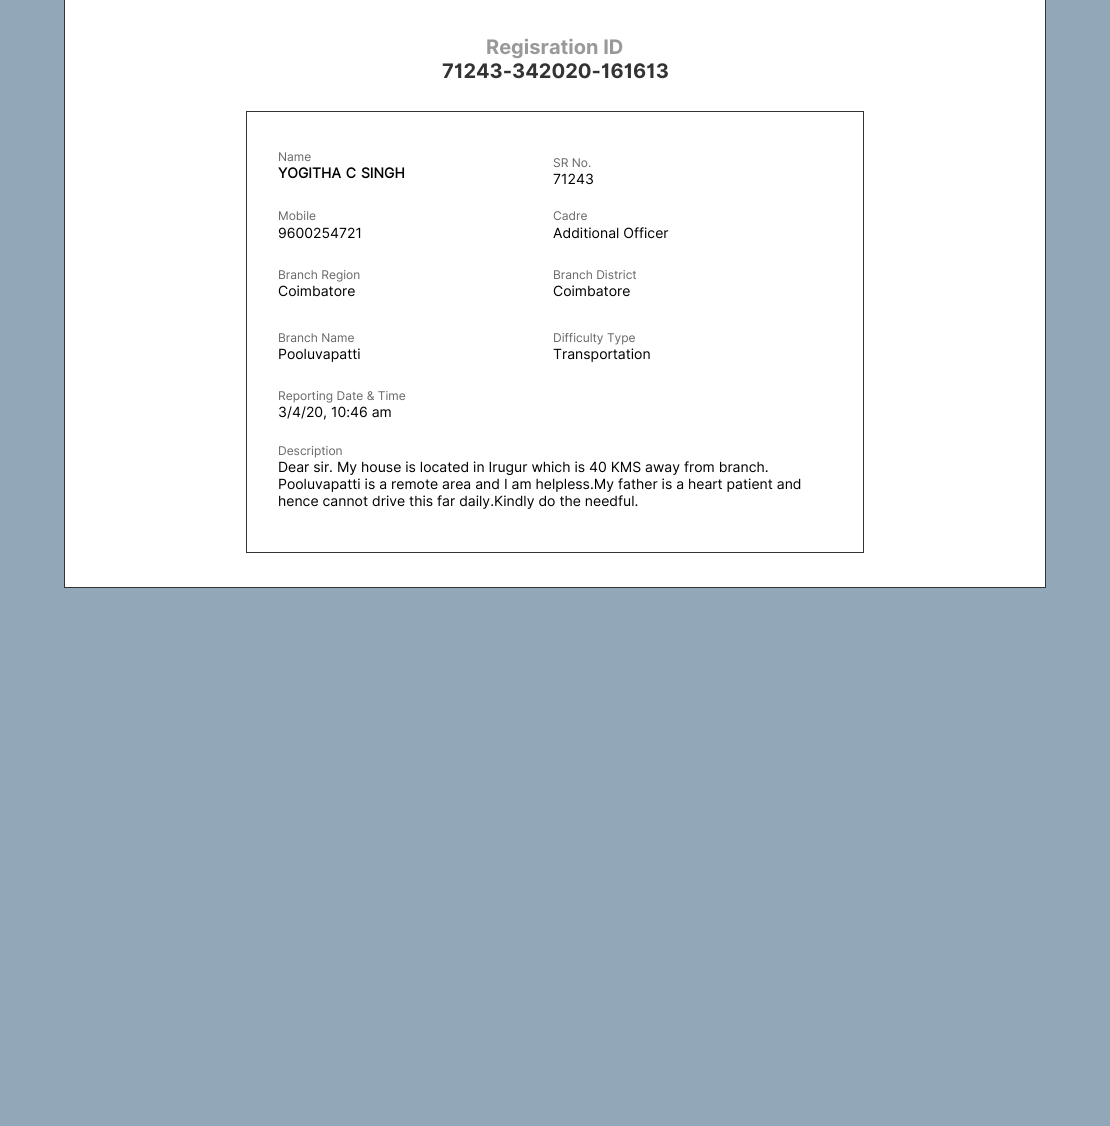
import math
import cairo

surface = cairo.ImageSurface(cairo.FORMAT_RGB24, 1110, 1126)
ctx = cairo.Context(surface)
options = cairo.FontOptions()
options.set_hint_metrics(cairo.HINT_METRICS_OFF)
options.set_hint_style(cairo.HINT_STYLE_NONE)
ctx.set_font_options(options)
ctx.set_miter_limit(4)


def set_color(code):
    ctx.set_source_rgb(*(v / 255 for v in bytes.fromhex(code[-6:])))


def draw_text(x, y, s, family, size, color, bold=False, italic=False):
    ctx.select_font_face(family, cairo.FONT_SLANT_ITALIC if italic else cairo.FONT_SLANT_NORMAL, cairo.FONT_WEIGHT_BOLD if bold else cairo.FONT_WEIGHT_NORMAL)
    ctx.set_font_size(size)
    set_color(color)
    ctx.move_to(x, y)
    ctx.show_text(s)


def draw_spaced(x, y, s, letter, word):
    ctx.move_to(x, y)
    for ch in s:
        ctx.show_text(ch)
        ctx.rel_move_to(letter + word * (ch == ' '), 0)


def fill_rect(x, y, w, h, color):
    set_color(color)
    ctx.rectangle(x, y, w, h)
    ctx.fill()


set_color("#92a8b9")
ctx.paint()
ctx.rectangle(64.5, -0.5, 981, 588)
set_color("#333333")
ctx.set_line_width(1)
ctx.stroke()
fill_rect(65, 0, 980, 587, "#ffffff")
draw_text(486, 54, "Regisration ID", "Inter", 20, "#999999", bold=True)
draw_text(442, 78, "71243-342020-161613", "Inter", 20, "#333333", bold=True)
ctx.rectangle(246.5, 111.5, 617, 441)
ctx.stroke()
draw_text(278, 161, "Name", "Inter", 12, "#666666")
ctx.select_font_face("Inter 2", cairo.FONT_SLANT_NORMAL, cairo.FONT_WEIGHT_BOLD)
ctx.set_font_size(14)
set_color("#000000")
draw_spaced(278, 178, "YOGITHA C SINGH", 0, 1)
draw_text(553, 167, "SR No.", "Inter", 12, "#666666")
draw_text(553, 184, "71243", "Inter", 14, "#000000")
draw_text(278, 220, "Mobile", "Inter", 12, "#666666")
draw_text(278, 238, "9600254721", "Inter", 14, "#000000")
draw_text(553, 220, "Cadre", "Inter", 12, "#666666")
draw_text(553, 238, "Additional Officer", "Inter", 14, "#000000")
draw_text(278, 279, "Branch Region", "Inter", 12, "#666666")
draw_text(278, 296, "Coimbatore", "Inter", 14, "#000000")
draw_text(553, 279, "Branch District", "Inter", 12, "#666666")
draw_text(553, 296, "Coimbatore", "Inter", 14, "#000000")
draw_text(278, 342, "Branch Name", "Inter", 12, "#666666")
draw_text(278, 359, "Pooluvapatti", "Inter", 14, "#000000")
draw_text(553, 342, "Difficulty Type", "Inter", 12, "#666666")
draw_text(553, 359, "Transportation", "Inter", 14, "#000000")
draw_text(278, 400, "Reporting Date & Time", "Inter", 12, "#666666")
draw_text(278, 417, "3/4/20, 10:46 am", "Inter", 14, "#000000")
draw_text(278, 455, "Description", "Inter", 12, "#666666")
draw_text(278, 472, "Dear sir. My house is located in Irugur which is 40 KMS away from branch.", "Inter", 14, "#000000")
draw_text(278, 489, "Pooluvapatti is a remote area and I am helpless.My father is a heart patient and", "Inter", 14, "#000000")
draw_text(278, 506, "hence cannot drive this far daily.Kindly do the needful.", "Inter", 14, "#000000")
surface.write_to_png("output.png")
